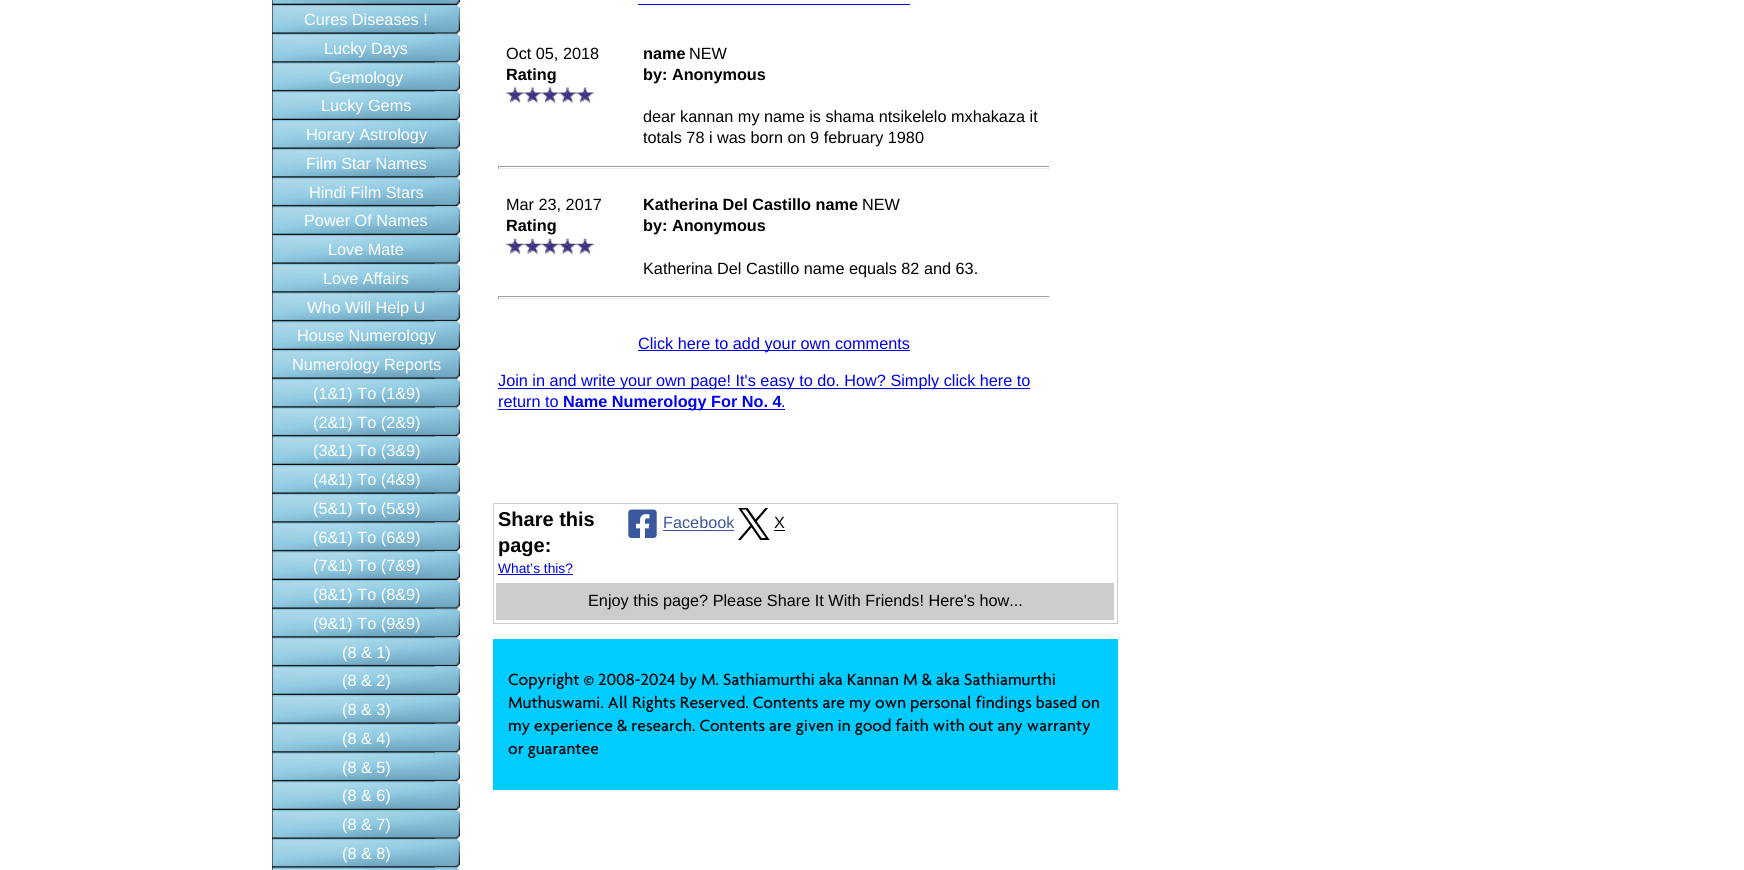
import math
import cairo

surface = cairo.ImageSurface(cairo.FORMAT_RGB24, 1744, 870)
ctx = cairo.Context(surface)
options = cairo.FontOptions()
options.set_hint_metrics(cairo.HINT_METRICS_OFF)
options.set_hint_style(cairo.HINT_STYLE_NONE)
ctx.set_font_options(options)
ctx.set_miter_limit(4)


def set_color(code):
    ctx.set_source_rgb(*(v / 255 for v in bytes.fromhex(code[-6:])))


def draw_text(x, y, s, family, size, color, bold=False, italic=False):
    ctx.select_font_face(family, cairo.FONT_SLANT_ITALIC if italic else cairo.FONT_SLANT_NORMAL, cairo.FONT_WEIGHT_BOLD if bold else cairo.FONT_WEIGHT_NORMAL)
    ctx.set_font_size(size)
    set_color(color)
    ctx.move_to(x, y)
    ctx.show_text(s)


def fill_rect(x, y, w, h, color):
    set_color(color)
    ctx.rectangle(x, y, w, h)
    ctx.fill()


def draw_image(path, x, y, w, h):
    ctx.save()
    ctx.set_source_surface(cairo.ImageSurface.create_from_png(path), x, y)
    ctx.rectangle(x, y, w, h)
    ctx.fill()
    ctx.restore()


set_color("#ffffff")
ctx.paint()
fill_rect(272, 0, 163, 870, "#000000")
draw_image("assets/img1.png", 272, 0, 188, 5)
draw_image("assets/img2.png", 272, 5, 188, 29)
draw_text(304, 25, "Cures Diseases !", "Liberation Sans", 16.25, "#ffffff")
draw_image("assets/img3.png", 272, 33, 188, 30)
draw_text(324, 54, "Lucky Days", "Liberation Sans", 16.25, "#ffffff")
draw_image("assets/img4.png", 272, 62, 188, 30)
draw_text(329, 83, "Gemology", "Liberation Sans", 16.25, "#ffffff")
draw_image("assets/img5.png", 272, 91, 188, 29)
draw_text(321, 111, "Lucky Gems", "Liberation Sans", 16.25, "#ffffff")
draw_image("assets/img6.png", 272, 120, 188, 29)
draw_text(306, 140, "Horary Astrology", "Liberation Sans", 16.25, "#ffffff")
draw_image("assets/img3.png", 272, 148, 188, 30)
draw_text(306, 169, "Film Star Names", "Liberation Sans", 16.25, "#ffffff")
draw_image("assets/img4.png", 272, 177, 188, 30)
draw_text(309, 198, "Hindi Film Stars", "Liberation Sans", 16.25, "#ffffff")
draw_image("assets/img5.png", 272, 206, 188, 29)
draw_text(304, 226, "Power Of Names", "Liberation Sans", 16.25, "#ffffff")
draw_image("assets/img2.png", 272, 235, 188, 29)
draw_text(328, 255, "Love Mate", "Liberation Sans", 16.25, "#ffffff")
draw_image("assets/img3.png", 272, 263, 188, 30)
draw_text(323, 284, "Love Affairs", "Liberation Sans", 16.25, "#ffffff")
draw_image("assets/img4.png", 272, 292, 188, 30)
draw_text(307, 313, "Who Will Help U", "Liberation Sans", 16.25, "#ffffff")
draw_image("assets/img5.png", 272, 321, 188, 29)
draw_text(297, 341, "House Numerology", "Liberation Sans", 16.25, "#ffffff")
draw_image("assets/img2.png", 272, 350, 188, 29)
draw_text(292, 370, "Numerology Reports", "Liberation Sans", 16.25, "#ffffff")
draw_image("assets/img3.png", 272, 378, 188, 30)
draw_text(313, 399, "(1&1) To (1&9)", "Liberation Sans", 16.25, "#ffffff")
draw_image("assets/img4.png", 272, 407, 188, 30)
draw_text(313, 428, "(2&1) To (2&9)", "Liberation Sans", 16.25, "#ffffff")
draw_image("assets/img5.png", 272, 436, 188, 29)
draw_text(313, 456, "(3&1) To (3&9)", "Liberation Sans", 16.25, "#ffffff")
draw_image("assets/img2.png", 272, 465, 188, 29)
draw_text(313, 485, "(4&1) To (4&9)", "Liberation Sans", 16.25, "#ffffff")
draw_image("assets/img3.png", 272, 493, 188, 30)
draw_text(313, 514, "(5&1) To (5&9)", "Liberation Sans", 16.25, "#ffffff")
draw_image("assets/img4.png", 272, 522, 188, 30)
draw_text(313, 543, "(6&1) To (6&9)", "Liberation Sans", 16.25, "#ffffff")
draw_image("assets/img5.png", 272, 551, 188, 29)
draw_text(313, 571, "(7&1) To (7&9)", "Liberation Sans", 16.25, "#ffffff")
draw_image("assets/img2.png", 272, 580, 188, 29)
draw_text(313, 600, "(8&1) To (8&9)", "Liberation Sans", 16.25, "#ffffff")
draw_image("assets/img3.png", 272, 608, 188, 30)
draw_text(313, 629, "(9&1) To (9&9)", "Liberation Sans", 16.25, "#ffffff")
draw_image("assets/img4.png", 272, 637, 188, 30)
draw_text(342, 658, "(8 & 1)", "Liberation Sans", 16.25, "#ffffff")
draw_image("assets/img5.png", 272, 666, 188, 29)
draw_text(342, 686, "(8 & 2)", "Liberation Sans", 16.25, "#ffffff")
draw_image("assets/img2.png", 272, 695, 188, 29)
draw_text(342, 715, "(8 & 3)", "Liberation Sans", 16.25, "#ffffff")
draw_image("assets/img3.png", 272, 723, 188, 30)
draw_text(342, 744, "(8 & 4)", "Liberation Sans", 16.25, "#ffffff")
draw_image("assets/img4.png", 272, 752, 188, 30)
draw_text(342, 773, "(8 & 5)", "Liberation Sans", 16.25, "#ffffff")
draw_image("assets/img5.png", 272, 781, 188, 29)
draw_text(342, 801, "(8 & 6)", "Liberation Sans", 16.25, "#ffffff")
draw_image("assets/img7.png", 272, 810, 188, 29)
draw_text(342, 830, "(8 & 7)", "Liberation Sans", 16.25, "#ffffff")
draw_image("assets/img3.png", 272, 838, 188, 30)
draw_text(342, 859, "(8 & 8)", "Liberation Sans", 16.25, "#ffffff")
draw_image("assets/img8.png", 272, 867, 188, 3)
fill_rect(638, 4, 272, 1, "#0000ee")
draw_text(506, 59, "Oct 05, 2018", "Liberation Sans", 16.25, "#000000")
draw_text(506, 80, "Rating", "Liberation Sans", 16.25, "#000000", bold=True)
draw_image("assets/img9.png", 506, 87, 18, 16)
draw_image("assets/img10.png", 523, 87, 19, 16)
draw_image("assets/img11.png", 541, 87, 18, 16)
draw_image("assets/img10.png", 558, 87, 19, 16)
draw_image("assets/img11.png", 576, 87, 18, 16)
draw_text(643, 59, "name", "Liberation Sans", 16.25, "#000000", bold=True)
draw_text(689, 59, "NEW", "Liberation Sans", 16.25, "#000000")
draw_text(643, 80, "by: Anonymous", "Liberation Sans", 16.25, "#000000", bold=True)
draw_text(643, 122, "dear kannan my name is shama ntsikelelo mxhakaza it", "Liberation Sans", 16.25, "#000000")
draw_text(643, 143, "totals 78 i was born on 9 february 1980", "Liberation Sans", 16.25, "#000000")
fill_rect(498, 166, 552, 1, "#9f9f9f")
fill_rect(1049, 166, 1, 3, "#eeeeee")
fill_rect(498, 168, 552, 1, "#eeeeee")
fill_rect(498, 166, 1, 3, "#9f9f9f")
draw_text(506, 210, "Mar 23, 2017", "Liberation Sans", 16.25, "#000000")
draw_text(506, 231, "Rating", "Liberation Sans", 16.25, "#000000", bold=True)
draw_image("assets/img12.png", 506, 238, 18, 16)
draw_image("assets/img13.png", 523, 238, 19, 16)
draw_image("assets/img14.png", 541, 238, 18, 16)
draw_image("assets/img13.png", 558, 238, 19, 16)
draw_image("assets/img14.png", 576, 238, 18, 16)
draw_text(643, 210, "Katherina Del Castillo name", "Liberation Sans", 16.25, "#000000", bold=True)
draw_text(862, 210, "NEW", "Liberation Sans", 16.25, "#000000")
draw_text(643, 231, "by: Anonymous", "Liberation Sans", 16.25, "#000000", bold=True)
draw_text(643, 274, "Katherina Del Castillo name equals 82 and 63.", "Liberation Sans", 16.25, "#000000")
fill_rect(498, 296, 552, 1, "#9f9f9f")
fill_rect(1049, 296, 1, 3, "#eeeeee")
fill_rect(498, 298, 552, 1, "#eeeeee")
fill_rect(498, 296, 1, 3, "#9f9f9f")
fill_rect(638, 350, 272, 1, "#0000ee")
draw_text(638, 349, "Click here to add your own comments", "Liberation Sans", 16.25, "#0000ee")
fill_rect(498, 388, 532, 1, "#0000ee")
draw_text(498, 386, "Join in and write your own page! It's easy to do. How? Simply click here to", "Liberation Sans", 16.25, "#0000ee")
draw_text(498, 407, "return to", "Liberation Sans", 16.25, "#0000ee")
fill_rect(498, 409, 287, 1, "#0000ee")
draw_text(563, 407, "Name Numerology For No. 4", "Liberation Sans", 16.25, "#0000ee", bold=True)
draw_text(781, 407, ".", "Liberation Sans", 16.25, "#0000ee")
ctx.rectangle(493.5, 503.5, 624, 120)
set_color("#cccccc")
ctx.set_line_width(1)
ctx.stroke()
draw_text(498, 526, "Share this", "Liberation Sans", 20, "#000000", bold=True)
draw_text(498, 552, "page:", "Liberation Sans", 20, "#000000", bold=True)
draw_text(498, 573, "What’s this?", "Liberation Sans", 13.75, "#0000ee")
fill_rect(498, 574, 75, 1, "#0000ee")
draw_image("assets/img15.png", 628, 509, 29, 29)
draw_text(663, 528, "Facebook", "Liberation Sans", 16.25, "#3b579d")
fill_rect(663, 530, 71, 1, "#3b579d")
draw_image("assets/img16.png", 738, 508, 32, 32)
draw_text(774, 528, "X", "Liberation Sans", 16.25, "#000000")
fill_rect(774, 530, 11, 1, "#000000")
fill_rect(496, 583, 618, 37, "#cccccc")
draw_text(588, 606, "Enjoy this page? Please Share It With Friends! Here's how...", "Liberation Sans", 16.25, "#000000")
fill_rect(493, 639, 625, 151, "#00ccff")
draw_text(508, 685, "Copyright © 2008-2024 by M. Sathiamurthi aka Kannan M & aka Sathiamurthi", "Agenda", 17.5, "#000000")
draw_text(508, 708, "Muthuswami. All Rights Reserved. Contents are my own personal findings based on", "Agenda", 17.5, "#000000")
draw_text(508, 731, "my experience & research. Contents are given in good faith with out any warranty", "Agenda", 17.5, "#000000")
draw_text(508, 754, "or guarantee", "Agenda", 17.5, "#000000")
surface.write_to_png("output.png")
